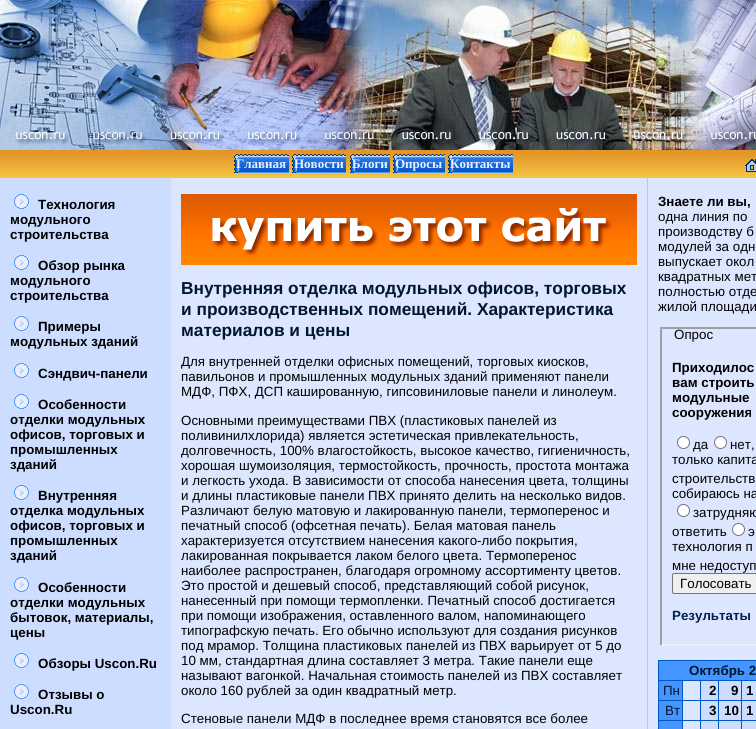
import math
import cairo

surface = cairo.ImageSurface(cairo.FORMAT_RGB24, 756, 729)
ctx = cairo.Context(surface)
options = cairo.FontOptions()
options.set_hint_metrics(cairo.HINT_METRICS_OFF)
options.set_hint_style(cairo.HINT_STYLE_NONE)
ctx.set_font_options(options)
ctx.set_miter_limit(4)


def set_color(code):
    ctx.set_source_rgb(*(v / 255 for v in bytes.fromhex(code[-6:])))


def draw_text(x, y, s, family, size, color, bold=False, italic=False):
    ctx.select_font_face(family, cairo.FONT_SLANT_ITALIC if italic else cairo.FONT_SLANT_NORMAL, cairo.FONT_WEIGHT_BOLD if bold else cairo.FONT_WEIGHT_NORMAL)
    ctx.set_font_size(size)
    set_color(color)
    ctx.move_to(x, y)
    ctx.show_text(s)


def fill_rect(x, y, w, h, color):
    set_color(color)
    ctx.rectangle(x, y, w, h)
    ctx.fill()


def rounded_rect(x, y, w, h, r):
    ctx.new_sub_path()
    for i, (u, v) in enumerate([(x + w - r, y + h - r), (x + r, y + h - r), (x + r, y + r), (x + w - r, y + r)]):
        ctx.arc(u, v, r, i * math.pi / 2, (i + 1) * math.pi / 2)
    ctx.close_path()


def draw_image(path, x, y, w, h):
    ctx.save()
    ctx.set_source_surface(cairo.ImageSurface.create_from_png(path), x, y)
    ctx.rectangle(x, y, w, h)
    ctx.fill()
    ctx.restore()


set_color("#ffffff")
ctx.paint()
draw_image("assets/img1.png", 0, 0, 756, 150)
draw_image("assets/img2.png", 0, 150, 756, 28)
draw_image("assets/img3.png", 234, 154, 55, 19)
draw_image("assets/img4.png", 292, 154, 54, 19)
draw_image("assets/img5.png", 350, 154, 40, 19)
draw_image("assets/img6.png", 393, 154, 52, 19)
draw_image("assets/img7.png", 448, 154, 65, 19)
draw_text(236, 168, "Главная", "Liberation Serif", 13, "#eeefff", bold=True)
draw_text(294, 168, "Новости", "Liberation Serif", 13, "#eeefff", bold=True)
draw_text(352, 168, "Блоги", "Liberation Serif", 13, "#eeefff", bold=True)
draw_text(395, 168, "Опросы", "Liberation Serif", 13, "#eeefff", bold=True)
draw_text(450, 168, "Контакты", "Liberation Serif", 13, "#eeefff", bold=True)
draw_image("assets/img8.png", 745, 159, 11, 13)
fill_rect(0, 178, 171, 551, "#ccddff")
draw_image("assets/img9.png", 14, 194, 15, 15)
draw_text(38, 209, "Технология", "Liberation Sans", 13.35, "#000000", bold=True)
draw_text(10, 224, "модульного", "Liberation Sans", 13.35, "#000000", bold=True)
draw_text(10, 239, "строительства", "Liberation Sans", 13.35, "#000000", bold=True)
draw_image("assets/img9.png", 14, 255, 15, 15)
draw_text(38, 270, "Обзор рынка", "Liberation Sans", 13.35, "#000000", bold=True)
draw_text(10, 285, "модульного", "Liberation Sans", 13.35, "#000000", bold=True)
draw_text(10, 300, "строительства", "Liberation Sans", 13.35, "#000000", bold=True)
draw_image("assets/img9.png", 14, 316, 15, 15)
draw_text(38, 331, "Примеры", "Liberation Sans", 13.35, "#000000", bold=True)
draw_text(10, 346, "модульных зданий", "Liberation Sans", 13.35, "#000000", bold=True)
draw_image("assets/img9.png", 14, 363, 15, 15)
draw_text(38, 378, "Сэндвич-панели", "Liberation Sans", 13.35, "#000000", bold=True)
draw_image("assets/img9.png", 14, 394, 15, 15)
draw_text(38, 409, "Особенности", "Liberation Sans", 13.35, "#000000", bold=True)
draw_text(10, 424, "отделки модульных", "Liberation Sans", 13.35, "#000000", bold=True)
draw_text(10, 439, "офисов, торговых и", "Liberation Sans", 13.35, "#000000", bold=True)
draw_text(10, 454, "промышленных", "Liberation Sans", 13.35, "#000000", bold=True)
draw_text(10, 469, "зданий", "Liberation Sans", 13.35, "#000000", bold=True)
draw_image("assets/img9.png", 14, 485, 15, 15)
draw_text(38, 500, "Внутренняя", "Liberation Sans", 13.35, "#000000", bold=True)
draw_text(10, 515, "отделка модульных", "Liberation Sans", 13.35, "#000000", bold=True)
draw_text(10, 530, "офисов, торговых и", "Liberation Sans", 13.35, "#000000", bold=True)
draw_text(10, 545, "промышленных", "Liberation Sans", 13.35, "#000000", bold=True)
draw_text(10, 560, "зданий", "Liberation Sans", 13.35, "#000000", bold=True)
draw_image("assets/img9.png", 14, 577, 15, 15)
draw_text(38, 592, "Особенности", "Liberation Sans", 13.35, "#000000", bold=True)
draw_text(10, 607, "отделки модульных", "Liberation Sans", 13.35, "#000000", bold=True)
draw_text(10, 622, "бытовок, материалы,", "Liberation Sans", 13.35, "#000000", bold=True)
draw_text(10, 637, "цены", "Liberation Sans", 13.35, "#000000", bold=True)
draw_image("assets/img9.png", 14, 653, 15, 15)
draw_text(38, 668, "Обзоры Uscon.Ru", "Liberation Sans", 13.35, "#000000", bold=True)
draw_image("assets/img9.png", 14, 684, 15, 15)
draw_text(38, 699, "Отзывы о", "Liberation Sans", 13.35, "#000000", bold=True)
draw_text(10, 714, "Uscon.Ru", "Liberation Sans", 13.35, "#000000", bold=True)
fill_rect(171, 178, 476, 551, "#dde6ff")
draw_image("assets/img10.png", 181, 194, 456, 71)
draw_text(181, 294, "Внутренняя отделка модульных офисов, торговых", "Liberation Sans", 17.3, "#001632", bold=True)
draw_text(181, 315, "и производственных помещений. Характеристика", "Liberation Sans", 17.3, "#001632", bold=True)
draw_text(181, 336, "материалов и цены", "Liberation Sans", 17.3, "#001632", bold=True)
draw_text(181, 366, "Для внутренней отделки офисных помещений, торговых киосков,", "Liberation Sans", 13.35, "#000000")
draw_text(181, 381, "павильонов и промышленных модульных зданий применяют панели", "Liberation Sans", 13.35, "#000000")
draw_text(181, 396, "МДФ, ПФХ, ДСП кашированную, гипсовиниловые панели и линолеум.", "Liberation Sans", 13.35, "#000000")
draw_text(181, 425, "Основными преимуществами ПВХ (пластиковых панелей из", "Liberation Sans", 13.35, "#000000")
draw_text(181, 440, "поливинилхлорида) является эстетическая привлекательность,", "Liberation Sans", 13.35, "#000000")
draw_text(181, 455, "долговечность, 100% влагостойкость, высокое качество, гигиеничность,", "Liberation Sans", 13.35, "#000000")
draw_text(181, 470, "хорошая шумоизоляция, термостойкость, прочность, простота монтажа", "Liberation Sans", 13.35, "#000000")
draw_text(181, 485, "и легкость ухода. В зависимости от способа нанесения цвета, толщины", "Liberation Sans", 13.35, "#000000")
draw_text(181, 500, "и длины пластиковые панели ПВХ принято делить на несколько видов.", "Liberation Sans", 13.35, "#000000")
draw_text(181, 515, "Различают белую матовую и лакированную панели, термоперенос и", "Liberation Sans", 13.35, "#000000")
draw_text(181, 530, "печатный способ (офсетная печать). Белая матовая панель", "Liberation Sans", 13.35, "#000000")
draw_text(181, 545, "характеризуется отсутствием нанесения какого-либо покрытия,", "Liberation Sans", 13.35, "#000000")
draw_text(181, 560, "лакированная покрывается лаком белого цвета. Термоперенос", "Liberation Sans", 13.35, "#000000")
draw_text(181, 575, "наиболее распространен, благодаря огромному ассортименту цветов.", "Liberation Sans", 13.35, "#000000")
draw_text(181, 590, "Это простой и дешевый способ, представляющий собой рисунок,", "Liberation Sans", 13.35, "#000000")
draw_text(181, 605, "нанесенный при помощи термопленки. Печатный способ достигается", "Liberation Sans", 13.35, "#000000")
draw_text(181, 620, "при помощи изображения, оставленного валом, напоминающего", "Liberation Sans", 13.35, "#000000")
draw_text(181, 635, "типографскую печать. Его обычно используют для создания рисунков", "Liberation Sans", 13.35, "#000000")
draw_text(181, 650, "под мрамор. Толщина пластиковых панелей из ПВХ варьирует от 5 до", "Liberation Sans", 13.35, "#000000")
draw_text(181, 665, "10 мм, стандартная длина составляет 3 метра. Такие панели еще", "Liberation Sans", 13.35, "#000000")
draw_text(181, 680, "называют вагонкой. Начальная стоимость панелей из ПВХ составляет", "Liberation Sans", 13.35, "#000000")
draw_text(181, 695, "около 160 рублей за один квадратный метр.", "Liberation Sans", 13.35, "#000000")
draw_text(181, 723, "Стеновые панели МДФ в последнее время становятся все более", "Liberation Sans", 13.35, "#000000")
fill_rect(647, 178, 1, 551, "#aacbff")
fill_rect(648, 178, 108, 551, "#dde6ff")
draw_text(658, 206, "Знаете ли вы,", "Liberation Sans", 13.35, "#000000", bold=True)
draw_text(658, 221, "одна линия по", "Liberation Sans", 13.35, "#000000")
draw_text(658, 236, "производству б", "Liberation Sans", 13.35, "#000000")
draw_text(658, 251, "модулей за одн", "Liberation Sans", 13.35, "#000000")
draw_text(658, 266, "выпускает окол", "Liberation Sans", 13.35, "#000000")
draw_text(658, 281, "квадратных мет", "Liberation Sans", 13.35, "#000000")
draw_text(658, 296, "полностью отде", "Liberation Sans", 13.35, "#000000")
draw_text(658, 311, "жилой площади", "Liberation Sans", 13.35, "#000000")
set_color("#9f9f9f")
ctx.new_path()
ctx.move_to(660, 327)
ctx.line_to(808, 327)
ctx.line_to(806, 329)
ctx.line_to(662, 329)
ctx.close_path()
ctx.fill()
set_color("#efefef")
ctx.new_path()
ctx.move_to(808, 646)
ctx.line_to(660, 646)
ctx.line_to(662, 644)
ctx.line_to(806, 644)
ctx.close_path()
ctx.fill()
set_color("#9f9f9f")
ctx.new_path()
ctx.move_to(660, 646)
ctx.line_to(660, 327)
ctx.line_to(662, 329)
ctx.line_to(662, 644)
ctx.close_path()
ctx.fill()
draw_text(674, 339, "Опрос", "Liberation Sans", 13.35, "#000000")
draw_text(672, 372, "Приходилос", "Liberation Sans", 13.35, "#000000", bold=True)
draw_text(672, 387, "вам строить", "Liberation Sans", 13.35, "#000000", bold=True)
draw_text(672, 402, "модульные", "Liberation Sans", 13.35, "#000000", bold=True)
draw_text(672, 417, "сооружения", "Liberation Sans", 13.35, "#000000", bold=True)
set_color("#ffffff")
ctx.new_path()
ctx.arc(720.5, 442.5, 6, 0, 2 * math.pi)
ctx.fill_preserve()
set_color("#767676")
ctx.set_line_width(1)
ctx.stroke()
draw_text(730, 449, "нет,", "Liberation Sans", 13.35, "#000000")
draw_text(672, 464, "только капита", "Liberation Sans", 13.35, "#000000")
draw_text(672, 483, "строительств", "Liberation Sans", 13.35, "#000000")
set_color("#ffffff")
ctx.new_path()
ctx.arc(683.5, 442.5, 6, 0, 2 * math.pi)
ctx.fill_preserve()
set_color("#767676")
ctx.stroke()
draw_text(693, 449, "да", "Liberation Sans", 13.35, "#000000")
draw_text(672, 498, "собираюсь на", "Liberation Sans", 13.35, "#000000")
set_color("#ffffff")
ctx.new_path()
ctx.arc(683.5, 510.5, 6, 0, 2 * math.pi)
ctx.fill_preserve()
set_color("#767676")
ctx.stroke()
draw_text(693, 517, "затрудняю", "Liberation Sans", 13.35, "#000000")
draw_text(672, 536, "ответить", "Liberation Sans", 13.35, "#000000")
set_color("#ffffff")
ctx.new_path()
ctx.arc(738.5, 529.5, 6, 0, 2 * math.pi)
ctx.fill_preserve()
set_color("#767676")
ctx.stroke()
draw_text(748, 536, "э", "Liberation Sans", 13.35, "#000000")
draw_text(672, 551, "технология п", "Liberation Sans", 13.35, "#000000")
draw_text(672, 570, "мне недоступ", "Liberation Sans", 13.35, "#000000")
set_color("#efefef")
rounded_rect(672.5, 573.5, 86, 20, 1.5)
ctx.fill_preserve()
set_color("#767676")
ctx.stroke()
draw_text(680, 588, "Голосовать", "Liberation Sans", 13.35, "#000000")
draw_text(672, 620, "Результаты", "Liberation Sans", 13.35, "#00214b", bold=True)
fill_rect(658, 660, 98, 69, "#0058c8")
fill_rect(659, 661, 97, 19, "#4495ff")
draw_text(689, 675, "Октябрь 2", "Liberation Sans", 13.35, "#001632", bold=True)
fill_rect(659, 681, 23, 19, "#4495ff")
draw_text(663, 695, "Пн", "Liberation Sans", 13.35, "#001632")
fill_rect(683, 681, 17, 19, "#dde6ff")
fill_rect(701, 681, 17, 19, "#ccddff")
draw_text(709, 695, "2", "Liberation Sans", 13.35, "#000000", bold=True)
fill_rect(719, 681, 22, 19, "#ccddff")
draw_text(731, 695, "9", "Liberation Sans", 13.35, "#000000", bold=True)
fill_rect(742, 681, 14, 19, "#ccddff")
draw_text(746, 695, "1", "Liberation Sans", 13.35, "#000000", bold=True)
fill_rect(659, 701, 23, 19, "#4495ff")
draw_text(665, 715, "Вт", "Liberation Sans", 13.35, "#001632")
fill_rect(683, 701, 17, 19, "#dde6ff")
fill_rect(701, 701, 17, 19, "#ccddff")
draw_text(709, 715, "3", "Liberation Sans", 13.35, "#000000", bold=True)
fill_rect(719, 701, 22, 19, "#ccddff")
draw_text(724, 715, "10", "Liberation Sans", 13.35, "#000000", bold=True)
fill_rect(742, 701, 14, 19, "#ccddff")
draw_text(746, 715, "1", "Liberation Sans", 13.35, "#000000", bold=True)
fill_rect(659, 721, 23, 8, "#4495ff")
fill_rect(683, 721, 17, 8, "#dde6ff")
fill_rect(701, 721, 17, 8, "#ccddff")
fill_rect(719, 721, 22, 8, "#ccddff")
fill_rect(742, 721, 14, 8, "#ccddff")
surface.write_to_png("output.png")
